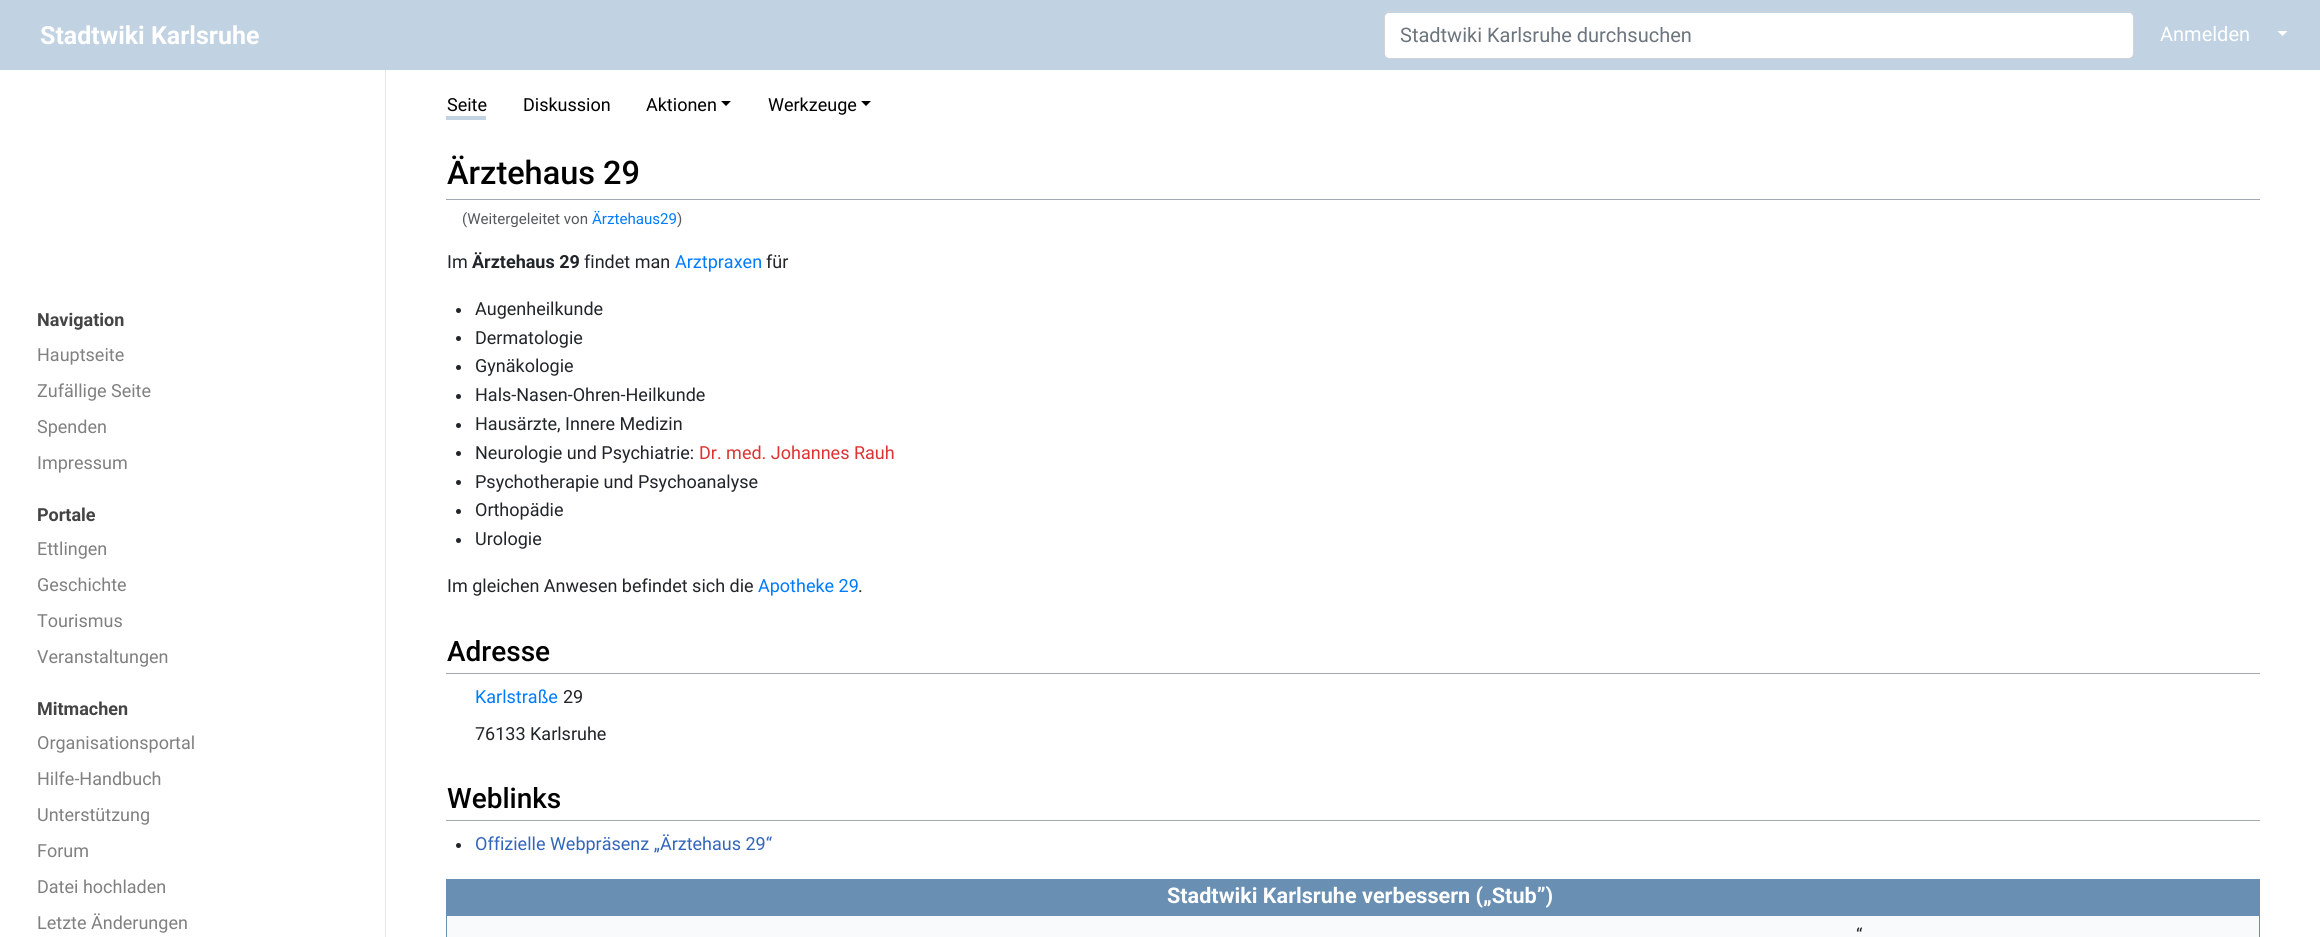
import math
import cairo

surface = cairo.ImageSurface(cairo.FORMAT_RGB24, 2320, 937)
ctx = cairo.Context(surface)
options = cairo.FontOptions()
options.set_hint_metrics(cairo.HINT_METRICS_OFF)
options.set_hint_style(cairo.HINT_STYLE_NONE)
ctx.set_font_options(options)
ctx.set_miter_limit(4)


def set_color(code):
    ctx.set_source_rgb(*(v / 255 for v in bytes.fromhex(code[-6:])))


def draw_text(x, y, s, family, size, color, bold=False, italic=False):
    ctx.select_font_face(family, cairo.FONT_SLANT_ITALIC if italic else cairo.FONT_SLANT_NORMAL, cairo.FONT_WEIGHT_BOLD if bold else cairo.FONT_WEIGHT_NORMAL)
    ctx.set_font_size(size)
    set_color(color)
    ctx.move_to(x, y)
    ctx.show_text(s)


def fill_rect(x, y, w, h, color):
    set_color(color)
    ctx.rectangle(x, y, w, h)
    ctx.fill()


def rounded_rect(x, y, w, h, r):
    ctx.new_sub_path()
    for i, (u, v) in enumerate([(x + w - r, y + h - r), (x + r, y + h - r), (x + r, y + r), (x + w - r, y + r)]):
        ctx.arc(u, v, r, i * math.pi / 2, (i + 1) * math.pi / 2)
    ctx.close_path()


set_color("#ffffff")
ctx.paint()
fill_rect(0, 0, 2320, 70, "#c1d2e2")
draw_text(40, 44, "Stadtwiki Karlsruhe", "Roboto", 25, "#ffffff", bold=True)
rounded_rect(1385, 13, 748, 45, 4)
ctx.fill()
rounded_rect(1384.5, 11.5, 749, 47, 4.5)
set_color("#ced4da")
ctx.set_line_width(1)
ctx.stroke()
draw_text(1400, 42, "Stadtwiki Karlsruhe durchsuchen", "Roboto", 20, "#6c757d")
draw_text(2160, 41, "Anmelden", "Roboto", 20, "#ffffff")
ctx.new_path()
ctx.move_to(2277.5, 31)
ctx.line_to(2287.5, 31)
ctx.line_to(2282.5, 36)
ctx.close_path()
ctx.fill()
fill_rect(385, 70, 1, 867, "#e5e5e5")
draw_text(37, 326, "Navigation", "Roboto", 18, "#444444", bold=True)
draw_text(37, 361, "Hauptseite", "Roboto", 18, "#808080")
draw_text(37, 397, "Zufällige Seite", "Roboto", 18, "#808080")
draw_text(37, 433, "Spenden", "Roboto", 18, "#808080")
draw_text(37, 469, "Impressum", "Roboto", 18, "#808080")
draw_text(37, 521, "Portale", "Roboto", 18, "#444444", bold=True)
draw_text(37, 555, "Ettlingen", "Roboto", 18, "#808080")
draw_text(37, 591, "Geschichte", "Roboto", 18, "#808080")
draw_text(37, 627, "Tourismus", "Roboto", 18, "#808080")
draw_text(37, 663, "Veranstaltungen", "Roboto", 18, "#808080")
draw_text(37, 715, "Mitmachen", "Roboto", 18, "#444444", bold=True)
draw_text(37, 749, "Organisationsportal", "Roboto", 18, "#808080")
draw_text(37, 785, "Hilfe-Handbuch", "Roboto", 18, "#808080")
draw_text(37, 821, "Unterstützung", "Roboto", 18, "#808080")
draw_text(37, 857, "Forum", "Roboto", 18, "#808080")
draw_text(37, 893, "Datei hochladen", "Roboto", 18, "#808080")
draw_text(37, 929, "Letzte Änderungen", "Roboto", 18, "#808080")
draw_text(447, 111, "Seite", "Roboto", 18, "#000000")
fill_rect(446, 116, 40, 4, "#c1d2e2")
draw_text(523, 111, "Diskussion", "Roboto", 18, "#000000")
draw_text(646, 111, "Aktionen", "Roboto", 18, "#000000")
ctx.new_path()
ctx.move_to(721, 101)
ctx.line_to(731, 101)
ctx.line_to(726, 106)
ctx.close_path()
ctx.fill()
draw_text(768, 111, "Werkzeuge", "Roboto", 18, "#000000")
ctx.new_path()
ctx.move_to(861, 101)
ctx.line_to(871, 101)
ctx.line_to(866, 106)
ctx.close_path()
ctx.fill()
fill_rect(446, 199, 1814, 1, "#a2a9b1")
draw_text(447, 184, "Ärztehaus 29", "Roboto Medium", 32.5, "#000000")
draw_text(462, 224, "(Weitergeleitet von", "Roboto", 15.1, "#54595d")
draw_text(592, 224, "Ärztehaus29", "Roboto", 15.1, "#007bff")
draw_text(677, 224, ")", "Roboto", 15.1, "#54595d")
draw_text(447, 268, "Im", "Roboto", 18, "#212529")
draw_text(472, 268, "Ärztehaus 29", "Roboto", 18, "#212529", bold=True)
draw_text(584, 268, "findet man", "Roboto", 18, "#212529")
draw_text(675, 268, "Arztpraxen", "Roboto", 18, "#007bff")
draw_text(766, 268, "für", "Roboto", 18, "#212529")
ctx.new_path()
ctx.arc(458.5, 310.5, 2.5, 0, 2 * math.pi)
ctx.fill()
draw_text(475, 315, "Augenheilkunde", "Roboto", 18, "#212529")
ctx.new_path()
ctx.arc(458.5, 338.5, 2.5, 0, 2 * math.pi)
ctx.fill()
draw_text(475, 344, "Dermatologie", "Roboto", 18, "#212529")
ctx.new_path()
ctx.arc(458.5, 367.5, 2.5, 0, 2 * math.pi)
ctx.fill()
draw_text(475, 372, "Gynäkologie", "Roboto", 18, "#212529")
ctx.new_path()
ctx.arc(458.5, 396.5, 2.5, 0, 2 * math.pi)
ctx.fill()
draw_text(475, 401, "Hals-Nasen-Ohren-Heilkunde", "Roboto", 18, "#212529")
ctx.new_path()
ctx.arc(458.5, 425.5, 2.5, 0, 2 * math.pi)
ctx.fill()
draw_text(475, 430, "Hausärzte, Innere Medizin", "Roboto", 18, "#212529")
ctx.new_path()
ctx.arc(458.5, 453.5, 2.5, 0, 2 * math.pi)
ctx.fill()
draw_text(475, 459, "Neurologie und Psychiatrie:", "Roboto", 18, "#212529")
draw_text(699, 459, "Dr. med. Johannes Rauh", "Roboto", 18, "#dd3333")
set_color("#212529")
ctx.new_path()
ctx.arc(458.5, 482.5, 2.5, 0, 2 * math.pi)
ctx.fill()
draw_text(475, 488, "Psychotherapie und Psychoanalyse", "Roboto", 18, "#212529")
ctx.new_path()
ctx.arc(458.5, 511.5, 2.5, 0, 2 * math.pi)
ctx.fill()
draw_text(475, 516, "Orthopädie", "Roboto", 18, "#212529")
ctx.new_path()
ctx.arc(458.5, 540.5, 2.5, 0, 2 * math.pi)
ctx.fill()
draw_text(475, 545, "Urologie", "Roboto", 18, "#212529")
draw_text(447, 592, "Im gleichen Anwesen befindet sich die", "Roboto", 18, "#212529")
draw_text(758, 592, "Apotheke 29", "Roboto", 18, "#007bff")
draw_text(858, 592, ".", "Roboto", 18, "#212529")
fill_rect(446, 673, 1814, 1, "#a2a9b1")
draw_text(447, 661, "Adresse", "Roboto Medium", 28, "#000000")
draw_text(475, 703, "Karlstraße", "Roboto", 18, "#007bff")
draw_text(563, 703, "29", "Roboto", 18, "#212529")
draw_text(475, 740, "76133 Karlsruhe", "Roboto", 18, "#212529")
fill_rect(446, 820, 1814, 1, "#a2a9b1")
draw_text(447, 808, "Weblinks", "Roboto Medium", 28, "#000000")
set_color("#212529")
ctx.new_path()
ctx.arc(458.5, 845.5, 2.5, 0, 2 * math.pi)
ctx.fill()
draw_text(475, 850, "Offizielle Webpräsenz „Ärztehaus 29“", "Roboto", 18, "#3366bb")
fill_rect(446, 879, 1814, 36, "#698fb3")
draw_text(1167, 903, "Stadtwiki Karlsruhe verbessern („Stub”)", "Roboto", 21.6, "#ffffff", bold=True)
set_color("#f8fafc")
ctx.rectangle(446.5, 915.5, 1813, 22)
ctx.fill_preserve()
set_color("#698fb3")
ctx.stroke()
draw_text(1856, 941, "“", "Roboto", 18, "#212529")
surface.write_to_png("output.png")
